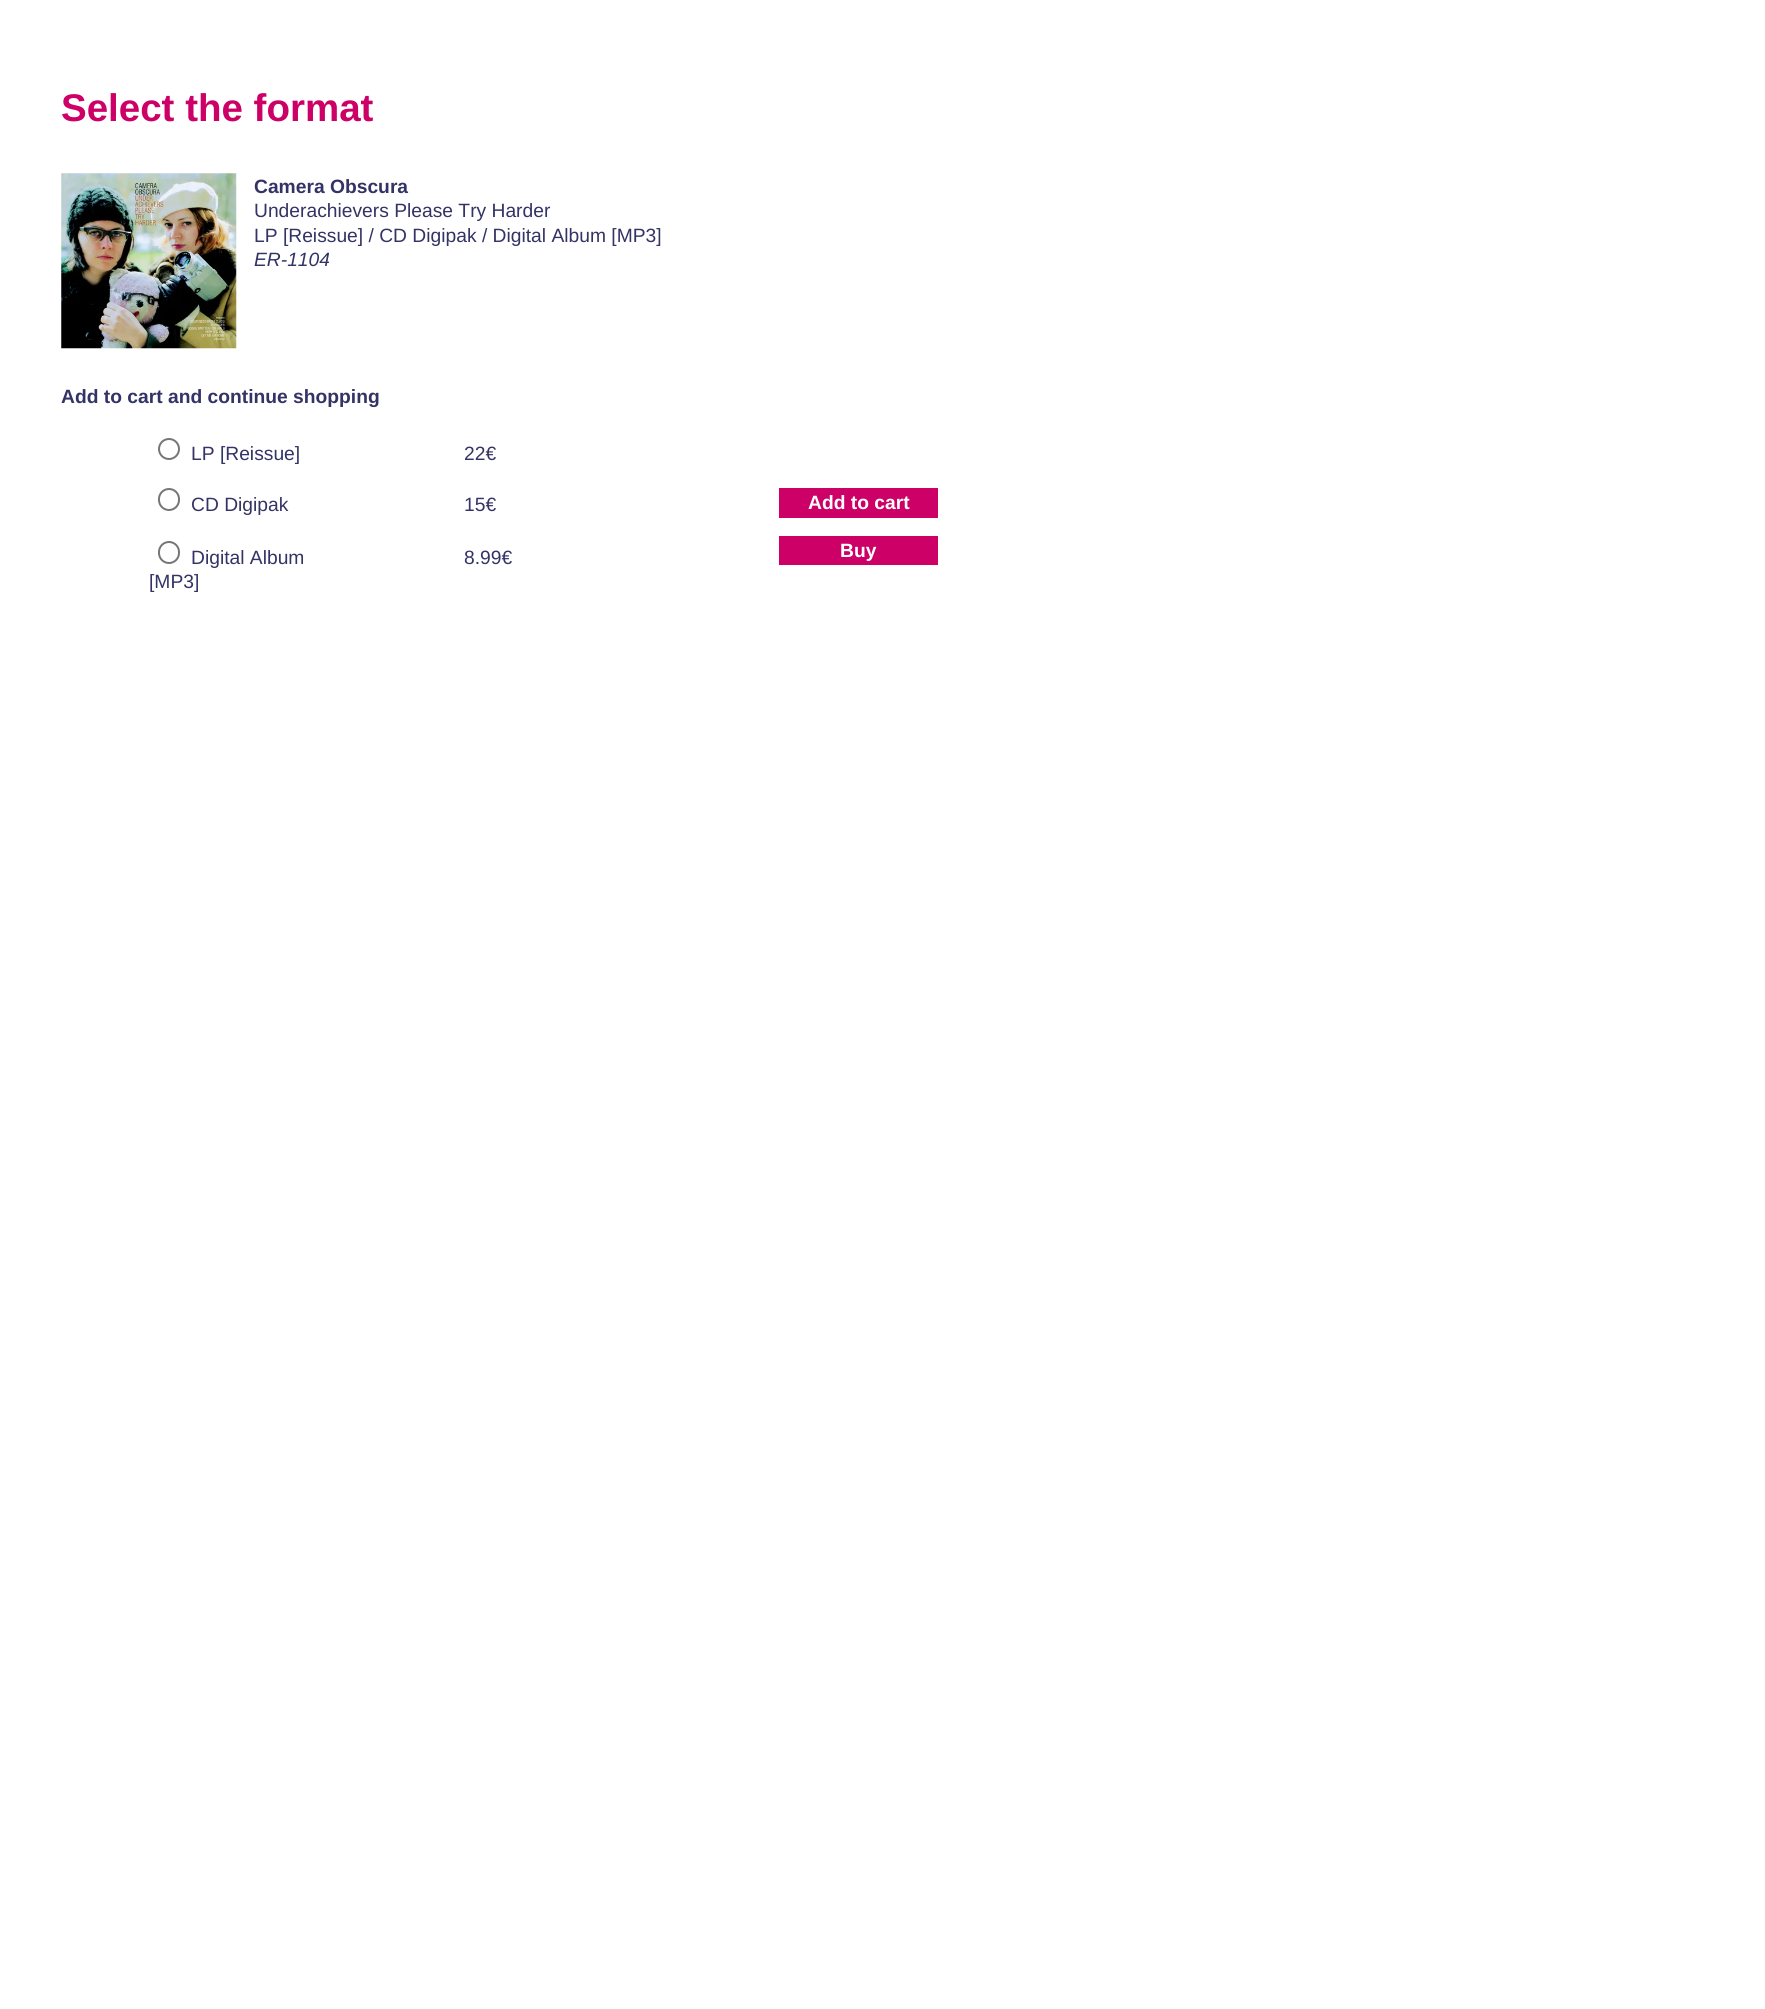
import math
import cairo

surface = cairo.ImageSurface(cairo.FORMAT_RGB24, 1765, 2009)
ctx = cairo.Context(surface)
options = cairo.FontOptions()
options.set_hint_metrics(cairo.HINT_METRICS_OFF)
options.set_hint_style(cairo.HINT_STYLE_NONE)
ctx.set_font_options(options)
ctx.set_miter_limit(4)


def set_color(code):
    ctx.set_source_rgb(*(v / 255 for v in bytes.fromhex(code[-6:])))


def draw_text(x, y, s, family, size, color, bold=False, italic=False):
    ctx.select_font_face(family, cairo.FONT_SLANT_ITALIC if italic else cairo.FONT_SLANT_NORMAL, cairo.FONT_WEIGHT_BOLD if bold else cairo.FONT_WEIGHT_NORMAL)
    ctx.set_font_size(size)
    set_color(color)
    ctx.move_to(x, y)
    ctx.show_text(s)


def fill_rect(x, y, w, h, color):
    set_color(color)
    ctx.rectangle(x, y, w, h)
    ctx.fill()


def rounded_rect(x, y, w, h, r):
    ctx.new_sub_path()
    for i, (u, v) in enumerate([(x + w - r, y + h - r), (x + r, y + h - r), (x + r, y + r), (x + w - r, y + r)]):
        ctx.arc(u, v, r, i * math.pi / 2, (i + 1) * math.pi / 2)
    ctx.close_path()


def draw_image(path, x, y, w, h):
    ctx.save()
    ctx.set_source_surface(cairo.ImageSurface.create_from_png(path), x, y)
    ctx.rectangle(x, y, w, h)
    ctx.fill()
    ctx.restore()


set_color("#ffffff")
ctx.paint()
draw_text(61, 121, "Select the format", "Liberation Sans", 38.5, "#cc0066", bold=True)
draw_image("assets/img1.png", 61, 173, 176, 176)
draw_text(254, 193, "Camera Obscura", "Liberation Sans", 19.25, "#333366", bold=True)
draw_text(254, 217, "Underachievers Please Try Harder", "Liberation Sans", 19.25, "#333366")
draw_text(254, 242, "LP [Reissue] / CD Digipak / Digital Album [MP3]", "Liberation Sans", 19.25, "#333366")
draw_text(254, 266, "ER-1104", "Liberation Sans", 19.25, "#333366", italic=True)
draw_text(61, 403, "Add to cart and continue shopping", "Liberation Sans", 19.25, "#333366", bold=True)
ctx.new_path()
ctx.arc(169, 449, 10, 0, 2 * math.pi)
set_color("#767676")
ctx.stroke()
draw_text(191, 460, "LP [Reissue]", "Liberation Sans", 19.25, "#333366")
draw_text(464, 460, "22€", "Liberation Sans", 19.25, "#333366")
rounded_rect(159, 489, 20, 21, 10)
set_color("#767676")
ctx.stroke()
draw_text(191, 511, "CD Digipak", "Liberation Sans", 19.25, "#333366")
draw_text(464, 511, "15€", "Liberation Sans", 19.25, "#333366")
fill_rect(779, 488, 159, 30, "#cc0066")
draw_text(808, 509, "Add to cart", "Liberation Sans", 19.25, "#ffffff", bold=True)
rounded_rect(159, 542, 20, 21, 10)
set_color("#767676")
ctx.stroke()
draw_text(191, 564, "Digital Album", "Liberation Sans", 19.25, "#333366")
draw_text(149, 588, "[MP3]", "Liberation Sans", 19.25, "#333366")
draw_text(464, 564, "8.99€", "Liberation Sans", 19.25, "#333366")
fill_rect(779, 536, 159, 29, "#cc0066")
draw_text(840, 557, "Buy", "Liberation Sans", 19.25, "#ffffff", bold=True)
surface.write_to_png("output.png")
